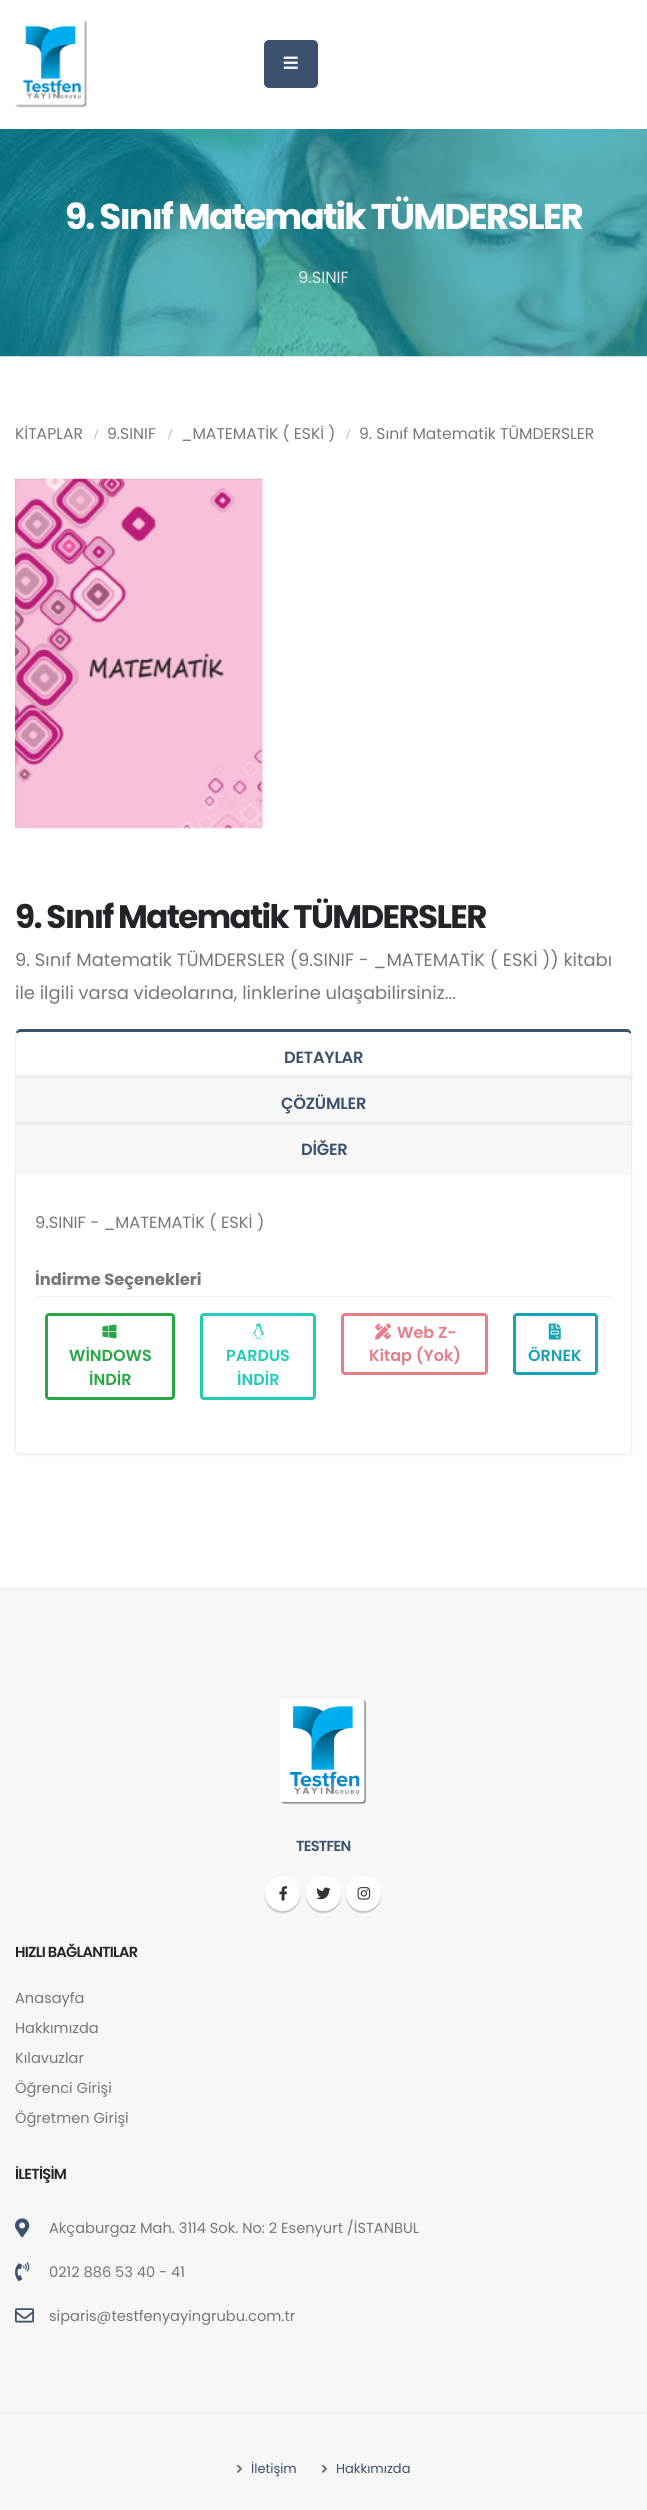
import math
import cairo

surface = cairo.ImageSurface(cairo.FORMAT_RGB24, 647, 2510)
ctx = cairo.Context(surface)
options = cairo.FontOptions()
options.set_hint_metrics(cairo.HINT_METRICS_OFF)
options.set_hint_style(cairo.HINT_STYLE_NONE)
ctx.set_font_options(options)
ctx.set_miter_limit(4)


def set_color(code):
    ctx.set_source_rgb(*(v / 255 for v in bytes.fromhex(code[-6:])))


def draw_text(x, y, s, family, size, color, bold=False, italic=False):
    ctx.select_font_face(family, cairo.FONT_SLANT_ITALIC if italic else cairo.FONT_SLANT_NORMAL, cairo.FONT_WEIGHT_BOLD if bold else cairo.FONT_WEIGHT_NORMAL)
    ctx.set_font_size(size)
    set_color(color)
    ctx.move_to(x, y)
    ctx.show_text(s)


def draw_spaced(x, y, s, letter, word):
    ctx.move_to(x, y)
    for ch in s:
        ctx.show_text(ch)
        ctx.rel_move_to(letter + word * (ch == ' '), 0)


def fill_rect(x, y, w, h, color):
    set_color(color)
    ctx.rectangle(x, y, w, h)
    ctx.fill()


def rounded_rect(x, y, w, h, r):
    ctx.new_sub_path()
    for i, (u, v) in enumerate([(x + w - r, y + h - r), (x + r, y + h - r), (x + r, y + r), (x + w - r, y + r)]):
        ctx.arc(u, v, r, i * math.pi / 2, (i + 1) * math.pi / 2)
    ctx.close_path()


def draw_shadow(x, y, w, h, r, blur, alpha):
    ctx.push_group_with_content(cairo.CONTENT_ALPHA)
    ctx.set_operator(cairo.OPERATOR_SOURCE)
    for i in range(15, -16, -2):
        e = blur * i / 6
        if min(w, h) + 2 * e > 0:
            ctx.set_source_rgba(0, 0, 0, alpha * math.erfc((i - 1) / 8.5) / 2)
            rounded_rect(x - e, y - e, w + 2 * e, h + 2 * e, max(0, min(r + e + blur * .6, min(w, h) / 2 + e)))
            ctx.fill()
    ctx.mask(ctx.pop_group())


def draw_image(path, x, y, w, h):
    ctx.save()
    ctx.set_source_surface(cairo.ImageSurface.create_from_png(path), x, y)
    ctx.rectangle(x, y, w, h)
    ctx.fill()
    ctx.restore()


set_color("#ffffff")
ctx.paint()
draw_image("assets/img1.png", 15, 20, 72, 88)
set_color("#3b516e")
rounded_rect(264, 40, 54, 48, 5)
ctx.fill()
draw_image("assets/img2.png", 283, 56, 15, 13)
draw_image("assets/img3.png", 0, 129, 647, 228)
ctx.select_font_face("Poppins", cairo.FONT_SLANT_NORMAL, cairo.FONT_WEIGHT_BOLD)
ctx.set_font_size(35.75)
set_color("#ffffff")
draw_spaced(65, 229, "9. Sınıf Matematik TÜMDERSLER", -1.8, 0)
draw_text(298, 283, "9.SINIF", "Poppins", 16.25, "#e6e5e5")
draw_text(15, 439, "KİTAPLAR", "Poppins", 15.6, "#777777")
draw_text(94, 439, "/", "Liberation Serif", 15.6, "#bbbbbb", bold=True)
draw_text(107, 439, "9.SINIF", "Poppins", 15.6, "#777777")
draw_text(168, 439, "/", "Liberation Serif", 15.6, "#bbbbbb", bold=True)
draw_text(181, 439, "_MATEMATİK ( ESKİ )", "Poppins", 15.6, "#777777")
draw_text(346, 439, "/", "Liberation Serif", 15.6, "#bbbbbb", bold=True)
draw_text(359, 439, "9. Sınıf Matematik TÜMDERSLER", "Poppins", 15.6, "#777777")
draw_image("assets/img4.png", 15, 478, 248, 351)
ctx.select_font_face("Poppins", cairo.FONT_SLANT_NORMAL, cairo.FONT_WEIGHT_BOLD)
ctx.set_font_size(32.5)
set_color("#212529")
draw_spaced(15, 928, "9. Sınıf Matematik TÜMDERSLER", -1.6, 0)
draw_text(15, 966, "9. Sınıf Matematik TÜMDERSLER (9.SINIF - _MATEMATİK ( ESKİ )) kitabı", "Poppins", 17.9, "#777777")
draw_text(15, 999, "ile ilgili varsa videolarına, linklerine ulaşabilirsiniz...", "Poppins", 17.9, "#777777")
set_color("#3b516e")
ctx.new_path()
ctx.move_to(21, 1029)
ctx.line_to(626, 1029)
ctx.curve_to(629, 1029, 630, 1030, 631, 1032)
ctx.line_to(631, 1034)
ctx.curve_to(630, 1033, 628, 1032, 626, 1032)
ctx.line_to(21, 1032)
ctx.curve_to(19, 1032, 17, 1033, 17, 1034)
ctx.line_to(16, 1032)
ctx.curve_to(17, 1030, 19, 1029, 21, 1029)
ctx.close_path()
ctx.fill()
set_color("#eeeeee")
ctx.new_path()
ctx.move_to(631, 1034)
ctx.line_to(631, 1082)
ctx.line_to(632, 1082)
ctx.line_to(632, 1035)
ctx.line_to(631, 1032)
ctx.close_path()
ctx.fill()
ctx.new_path()
ctx.move_to(16, 1032)
ctx.line_to(17, 1034)
ctx.curve_to(15, 1035, 16, 1076, 16, 1082)
ctx.line_to(15, 1082)
ctx.line_to(15, 1035)
ctx.close_path()
ctx.fill()
ctx.select_font_face("Poppins SemiBold")
ctx.set_font_size(16.25)
set_color("#3b516e")
draw_spaced(284, 1063, "DETAYLAR", -0.25, 0)
fill_rect(16, 1079, 615, 42, "#f7f7f7")
fill_rect(15, 1075, 618, 4, "#eeeeee")
fill_rect(631, 1075, 1, 54, "#eeeeee")
fill_rect(15, 1075, 1, 54, "#eeeeee")
set_color("#3b516e")
draw_spaced(281, 1109, "ÇÖZÜMLER", -0.25, 0)
set_color("#000000")
draw_shadow(15, 1169, 618, 287, 5, 3, 0.04)
set_color("#ffffff")
ctx.new_path()
ctx.move_to(15, 1168)
ctx.line_to(633, 1168)
ctx.line_to(633, 1450)
ctx.curve_to(633, 1453, 631, 1455, 628, 1455)
ctx.line_to(20, 1455)
ctx.curve_to(17, 1455, 15, 1453, 15, 1450)
ctx.close_path()
ctx.fill()
set_color("#eeeeee")
ctx.set_fill_rule(cairo.FILL_RULE_EVEN_ODD)
ctx.new_path()
ctx.move_to(15, 1168)
ctx.line_to(632, 1168)
ctx.line_to(632, 1450)
ctx.curve_to(632, 1453, 630, 1455, 628, 1455)
ctx.line_to(20, 1455)
ctx.curve_to(17, 1455, 15, 1453, 15, 1450)
ctx.close_path()
ctx.move_to(16, 1168)
ctx.line_to(631, 1168)
ctx.line_to(631, 1450)
ctx.curve_to(631, 1452, 630, 1454, 628, 1454)
ctx.line_to(20, 1454)
ctx.curve_to(18, 1454, 16, 1452, 16, 1450)
ctx.close_path()
ctx.fill()
fill_rect(16, 1125, 615, 50, "#f7f7f7")
fill_rect(15, 1121, 618, 4, "#eeeeee")
fill_rect(631, 1121, 1, 54, "#eeeeee")
fill_rect(15, 1121, 1, 54, "#eeeeee")
set_color("#3b516e")
draw_spaced(301, 1155, "DİĞER", -0.25, 0)
draw_text(35, 1228, "9.SINIF - _MATEMATİK ( ESKİ )", "Poppins", 16.25, "#777777")
draw_text(35, 1285, "İndirme Seçenekleri", "Poppins", 16.25, "#777777", bold=True)
fill_rect(35, 1296, 578, 1, "#f0f0f0")
rounded_rect(46.5, 1314.5, 127, 84, 2.5)
set_color("#28a745")
ctx.set_line_width(3)
ctx.stroke()
draw_image("assets/img5.png", 102, 1324, 15, 15)
draw_text(69, 1361, "WİNDOWS", "Poppins SemiBold", 16, "#28a745")
draw_text(89, 1385, "İNDİR", "Poppins SemiBold", 16, "#28a745")
rounded_rect(201.5, 1314.5, 113, 84, 2.5)
set_color("#24ccb8")
ctx.stroke()
draw_image("assets/img6.png", 251, 1323, 14, 17)
draw_text(226, 1361, "PARDUS", "Poppins SemiBold", 16, "#24ccb8")
draw_text(237, 1385, "İNDİR", "Poppins SemiBold", 16, "#24ccb8")
rounded_rect(342.5, 1314.5, 144, 59, 2.5)
set_color("#e87c86")
ctx.stroke()
draw_image("assets/img7.png", 375, 1323, 16, 17)
draw_text(397, 1338, "Web Z-", "Poppins SemiBold", 16, "#e87c86")
draw_text(369, 1361, "Kitap (Yok)", "Poppins SemiBold", 16, "#e87c86")
rounded_rect(514.5, 1314.5, 82, 59, 2.5)
set_color("#17a2b8")
ctx.stroke()
draw_image("assets/img8.png", 548, 1323, 13, 17)
draw_text(528, 1361, "ÖRNEK", "Poppins SemiBold", 16, "#17a2b8")
fill_rect(0, 1589, 647, 921, "#f7f7f7")
fill_rect(0, 1588, 647, 1, "#ebebeb")
draw_image("assets/img9.png", 280, 1699, 88, 106)
ctx.set_font_size(14.6)
set_color("#3b516e")
draw_spaced(296, 1851, "TESTFEN", -0.75, 0)
set_color("#000000")
draw_shadow(265, 1878, 35, 35, 17.5, 0.5, 0.2)
set_color("#ffffff")
ctx.arc(282.5, 1893.5, 17.5, 0, 2 * math.pi)
ctx.fill()
draw_image("assets/img10.png", 279, 1886, 9, 15)
set_color("#000000")
draw_shadow(306, 1878, 35, 35, 17.5, 0.5, 0.2)
set_color("#ffffff")
ctx.arc(323.5, 1893.5, 17.5, 0, 2 * math.pi)
ctx.fill()
draw_image("assets/img11.png", 316, 1887, 15, 13)
set_color("#000000")
draw_shadow(346, 1878, 35, 35, 17.5, 0.5, 0.2)
set_color("#ffffff")
ctx.arc(363.5, 1893.5, 17.5, 0, 2 * math.pi)
ctx.fill()
draw_image("assets/img12.png", 357, 1887, 14, 13)
set_color("#212529")
draw_spaced(15, 1957, "HIZLI BAĞLANTILAR", -0.75, 0)
draw_text(15, 2003, "Anasayfa", "Poppins", 14.6, "#777777")
draw_text(15, 2033, "Hakkımızda", "Poppins", 14.6, "#777777")
draw_text(15, 2063, "Kılavuzlar", "Poppins", 14.6, "#777777")
draw_text(15, 2093, "Öğrenci Girişi", "Poppins", 14.6, "#777777")
draw_text(15, 2123, "Öğretmen Girişi", "Poppins", 14.6, "#777777")
ctx.select_font_face("Poppins SemiBold")
set_color("#212529")
draw_spaced(15, 2179, "İLETİŞİM", -0.75, 0)
draw_image("assets/img13.png", 15, 2218, 15, 20)
draw_text(49, 2233, "Akçaburgaz Mah. 3114 Sok. No: 2 Esenyurt /İSTANBUL", "Poppins", 14.6, "#777777")
draw_image("assets/img14.png", 15, 2262, 15, 20)
draw_text(49, 2277, "0212 886 53 40 - 41", "Poppins", 14.6, "#777777")
draw_image("assets/img15.png", 15, 2308, 19, 15)
draw_text(49, 2321, "siparis@testfenyayingrubu.com.tr", "Poppins", 14.6, "#777777")
fill_rect(0, 2413, 647, 1, "#ebebeb")
draw_image("assets/img16.png", 237, 2464, 6, 9)
draw_text(251, 2473, "İletişim", "Poppins", 13, "#3b516e")
draw_image("assets/img16.png", 322, 2464, 6, 9)
draw_text(336, 2473, "Hakkımızda", "Poppins", 13, "#3b516e")
surface.write_to_png("output.png")
